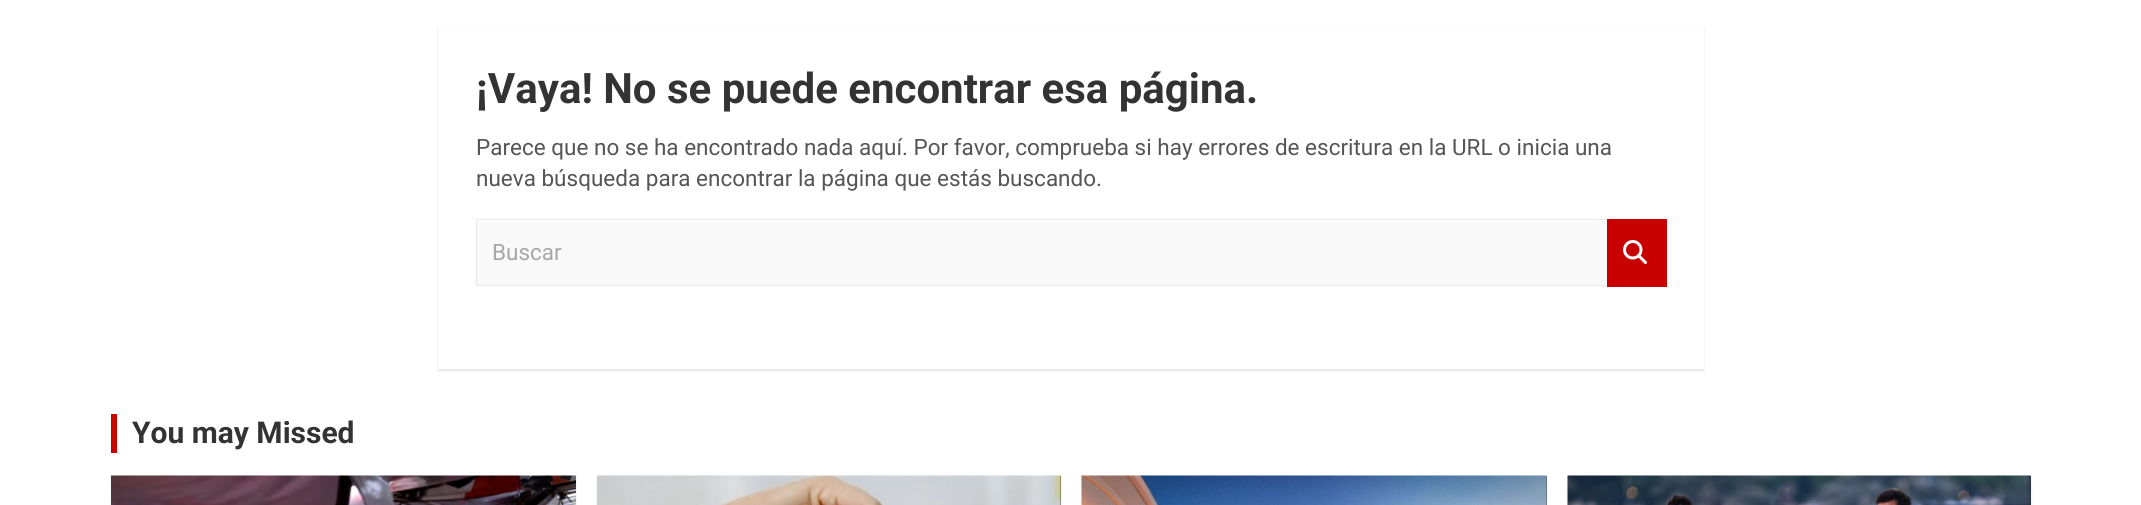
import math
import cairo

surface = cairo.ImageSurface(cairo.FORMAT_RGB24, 2141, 505)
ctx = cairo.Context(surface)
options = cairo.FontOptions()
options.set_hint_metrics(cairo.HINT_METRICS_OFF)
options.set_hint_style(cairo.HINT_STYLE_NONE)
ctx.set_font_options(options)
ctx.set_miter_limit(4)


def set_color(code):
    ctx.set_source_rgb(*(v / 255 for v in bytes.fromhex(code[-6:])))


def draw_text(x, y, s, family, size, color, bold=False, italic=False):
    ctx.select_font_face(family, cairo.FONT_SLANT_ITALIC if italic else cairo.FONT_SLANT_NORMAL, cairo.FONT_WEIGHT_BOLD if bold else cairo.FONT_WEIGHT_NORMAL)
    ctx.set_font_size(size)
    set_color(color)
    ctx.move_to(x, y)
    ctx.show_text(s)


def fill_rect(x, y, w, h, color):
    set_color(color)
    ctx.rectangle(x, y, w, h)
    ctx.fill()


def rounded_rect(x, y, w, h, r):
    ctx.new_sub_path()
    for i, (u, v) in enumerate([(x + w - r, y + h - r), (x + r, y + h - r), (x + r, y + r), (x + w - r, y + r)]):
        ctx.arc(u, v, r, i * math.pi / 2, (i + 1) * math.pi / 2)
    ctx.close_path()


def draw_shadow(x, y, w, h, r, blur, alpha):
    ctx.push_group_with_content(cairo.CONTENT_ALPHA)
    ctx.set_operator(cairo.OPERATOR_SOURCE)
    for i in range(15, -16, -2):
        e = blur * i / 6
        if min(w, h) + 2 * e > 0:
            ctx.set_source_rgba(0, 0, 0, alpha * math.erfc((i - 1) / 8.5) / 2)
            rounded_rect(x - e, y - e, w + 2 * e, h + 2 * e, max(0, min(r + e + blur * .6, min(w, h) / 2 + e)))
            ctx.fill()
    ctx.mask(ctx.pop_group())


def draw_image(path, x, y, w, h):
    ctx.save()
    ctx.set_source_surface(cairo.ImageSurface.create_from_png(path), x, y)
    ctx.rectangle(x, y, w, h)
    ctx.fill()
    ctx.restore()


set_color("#ffffff")
ctx.paint()
ctx.save()
ctx.set_fill_rule(cairo.FILL_RULE_EVEN_ODD)
ctx.new_path()
ctx.move_to(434, 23)
ctx.line_to(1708, 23)
ctx.line_to(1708, 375)
ctx.line_to(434, 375)
ctx.close_path()
ctx.move_to(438, 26)
ctx.line_to(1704, 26)
ctx.line_to(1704, 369)
ctx.line_to(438, 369)
ctx.close_path()
ctx.clip()
set_color("#000000")
draw_shadow(438, 27, 1266, 344, 0, 1, 0.1)
ctx.restore()
draw_text(476, 103, "¡Vaya! No se puede encontrar esa página.", "Roboto", 42, "#333333", bold=True)
draw_text(476, 155, "Parece que no se ha encontrado nada aquí. Por favor, comprueba si hay errores de escritura en la URL o inicia una", "Roboto", 22.5, "#555555")
draw_text(476, 186, "nueva búsqueda para encontrar la página que estás buscando.", "Roboto", 22.5, "#555555")
fill_rect(477, 221, 1130, 64, "#f9f9f9")
set_color("#e8e8e8")
ctx.new_path()
ctx.move_to(476, 219)
ctx.line_to(1606, 219)
ctx.line_to(1606, 220)
ctx.line_to(477, 220)
ctx.close_path()
ctx.fill()
ctx.new_path()
ctx.move_to(1606, 286)
ctx.line_to(476, 286)
ctx.line_to(477, 285)
ctx.line_to(1606, 285)
ctx.close_path()
ctx.fill()
ctx.set_source_rgba(0, 0, 0, 0.09)
ctx.new_path()
ctx.move_to(476, 286)
ctx.line_to(476, 219)
ctx.line_to(477, 220)
ctx.line_to(477, 285)
ctx.close_path()
ctx.fill()
draw_text(492, 260, "Buscar", "Roboto", 22.5, "#a7a7a7")
fill_rect(1607, 219, 60, 68, "#c80000")
draw_image("assets/img1.png", 1623, 240, 24, 24)
fill_rect(111, 414, 6, 39, "#c80000")
draw_text(132, 443, "You may Missed", "Roboto", 30, "#333333", bold=True)
set_color("#000000")
draw_shadow(111, 477, 465, 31, 0, 1, 0.1)
draw_image("assets/img2.png", 111, 475, 465, 30)
draw_shadow(597, 477, 464, 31, 0, 1, 0.1)
fill_rect(1060, 476, 1, 29, "#555555")
draw_image("assets/img3.png", 597, 475, 464, 30)
set_color("#000000")
draw_shadow(1082, 477, 465, 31, 0, 1, 0.1)
fill_rect(1546, 476, 1, 29, "#555555")
draw_image("assets/img4.png", 1081, 475, 466, 30)
set_color("#000000")
draw_shadow(1568, 477, 463, 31, 0, 1, 0.1)
draw_image("assets/img5.png", 1567, 475, 464, 30)
surface.write_to_png("output.png")
